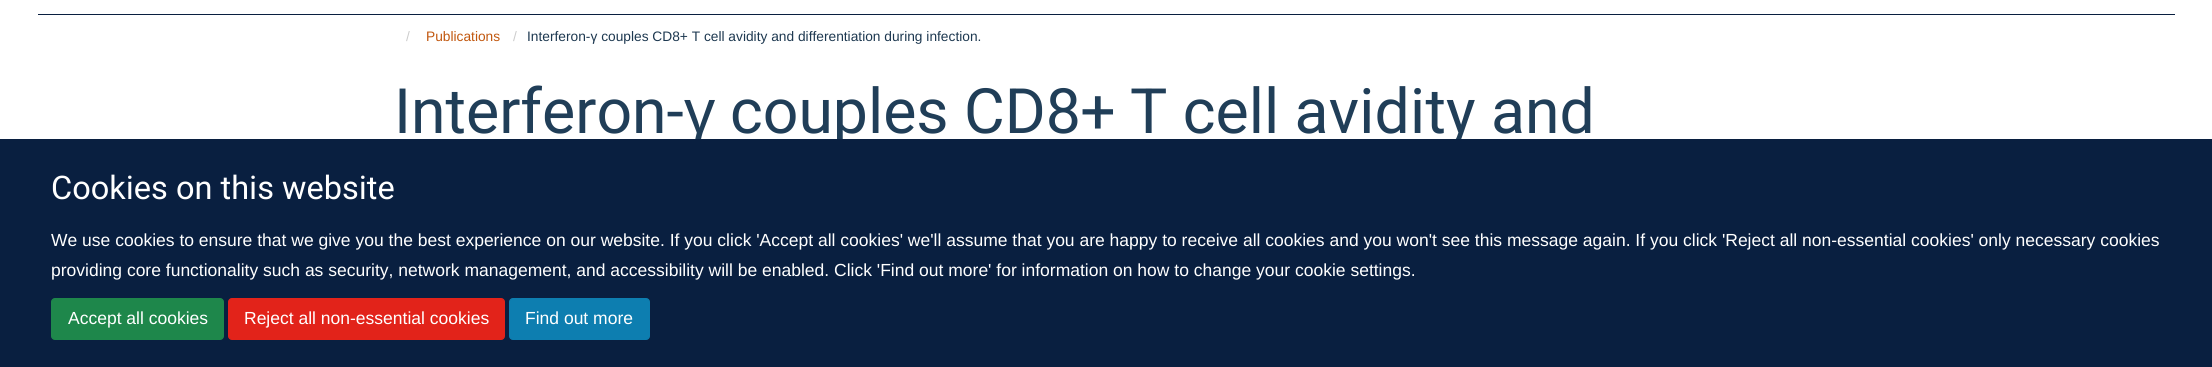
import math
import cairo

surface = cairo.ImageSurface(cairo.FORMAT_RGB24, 2212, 367)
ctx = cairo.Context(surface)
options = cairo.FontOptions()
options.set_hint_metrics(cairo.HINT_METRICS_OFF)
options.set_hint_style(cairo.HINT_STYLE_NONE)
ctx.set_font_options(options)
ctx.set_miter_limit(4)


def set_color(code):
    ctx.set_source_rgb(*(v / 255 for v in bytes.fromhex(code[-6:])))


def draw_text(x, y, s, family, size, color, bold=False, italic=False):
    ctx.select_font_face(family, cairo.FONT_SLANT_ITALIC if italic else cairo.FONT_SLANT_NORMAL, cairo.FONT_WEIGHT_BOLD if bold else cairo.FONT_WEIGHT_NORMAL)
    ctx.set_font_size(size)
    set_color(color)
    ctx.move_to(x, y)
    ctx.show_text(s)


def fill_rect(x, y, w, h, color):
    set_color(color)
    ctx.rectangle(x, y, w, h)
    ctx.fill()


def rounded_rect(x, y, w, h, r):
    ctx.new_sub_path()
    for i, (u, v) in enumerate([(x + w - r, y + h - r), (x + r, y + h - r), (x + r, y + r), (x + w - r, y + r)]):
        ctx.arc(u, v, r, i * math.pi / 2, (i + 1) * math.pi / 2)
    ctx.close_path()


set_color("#ffffff")
ctx.paint()
fill_rect(38, 14, 2137, 1, "#091f40")
draw_text(406, 41, "/", "Liberation Sans", 13.75, "#cccccc")
draw_text(426, 41, "Publications", "Liberation Sans", 13.75, "#c1570e")
draw_text(513, 41, "/", "Liberation Sans", 13.75, "#cccccc")
draw_text(527, 41, "Interferon-γ couples CD8+ T cell avidity and differentiation during infection.", "Liberation Sans", 13.75, "#1d3850")
draw_text(394, 133, "Interferon-", "Heebo", 62.5, "#203e58")
draw_text(684, 133, "γ", "Liberation Sans", 62.5, "#203e58")
draw_text(730, 133, "couples CD8+ T cell avidity and", "Heebo", 62.5, "#203e58")
fill_rect(0, 139, 2212, 228, "#091f40")
draw_text(51, 199, "Cookies on this website", "Heebo", 32.5, "#ffffff")
draw_text(51, 246, "We use cookies to ensure that we give you the best experience on our website. If you click 'Accept all cookies' we'll assume that you are happy to receive all cookies and you won't see this message again. If you click 'Reject all non-essential cookies' only necessary cookies", "Liberation Sans", 17.5, "#ffffff")
draw_text(51, 276, "providing core functionality such as security, network management, and accessibility will be enabled. Click 'Find out more' for information on how to change your cookie settings.", "Liberation Sans", 17.5, "#ffffff")
set_color("#1e874b")
rounded_rect(51.5, 298.5, 172, 41, 3.5)
ctx.fill_preserve()
ctx.set_line_width(1)
ctx.stroke()
draw_text(68, 324, "Accept all cookies", "Liberation Sans", 17.5, "#ffffff")
set_color("#e2231a")
rounded_rect(228.5, 298.5, 276, 41, 3.5)
ctx.fill_preserve()
ctx.stroke()
draw_text(244, 324, "Reject all non-essential cookies", "Liberation Sans", 17.5, "#ffffff")
set_color("#0d7eb0")
rounded_rect(509.5, 298.5, 140, 41, 3.5)
ctx.fill_preserve()
ctx.stroke()
draw_text(525, 324, "Find out more", "Liberation Sans", 17.5, "#ffffff")
surface.write_to_png("output.png")
